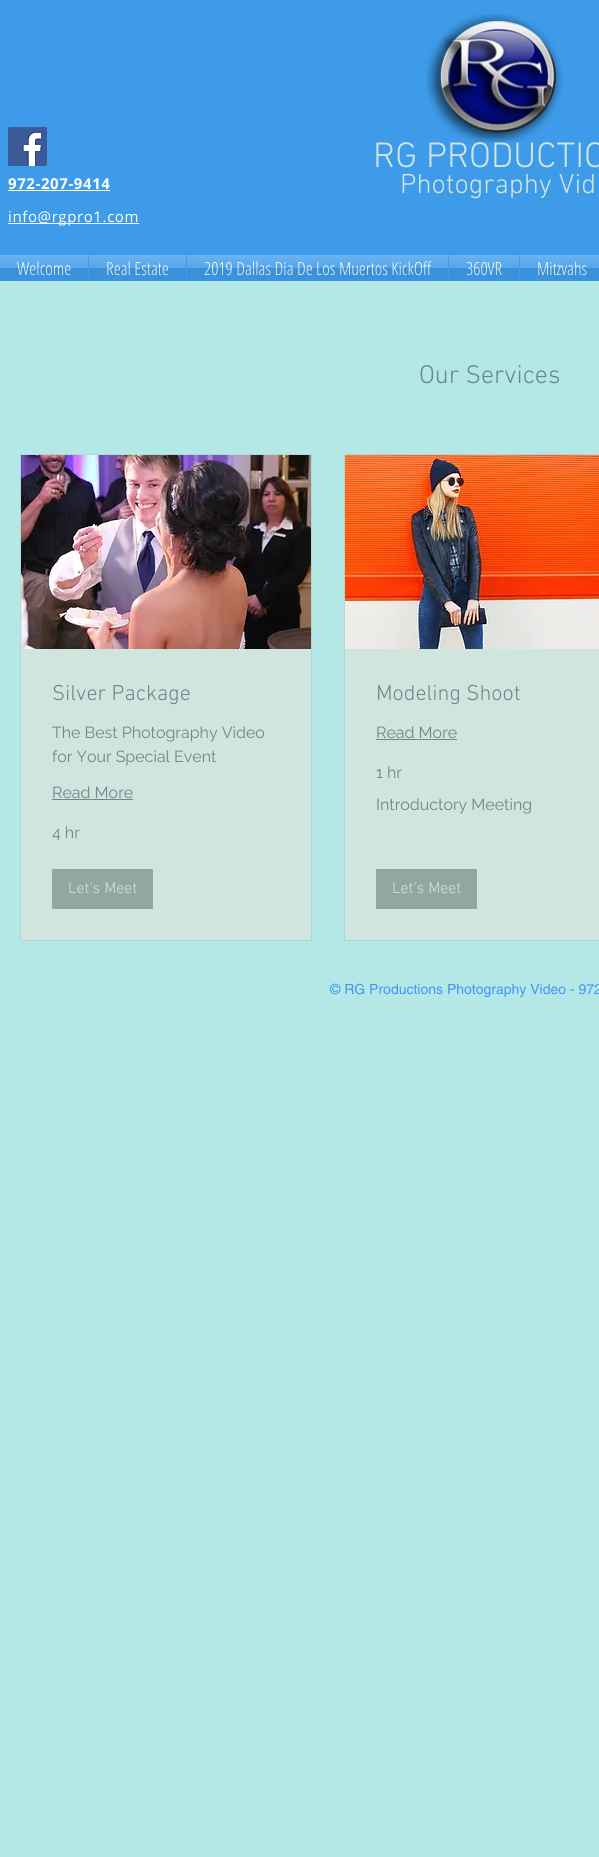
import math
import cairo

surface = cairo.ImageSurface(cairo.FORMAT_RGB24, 599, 1857)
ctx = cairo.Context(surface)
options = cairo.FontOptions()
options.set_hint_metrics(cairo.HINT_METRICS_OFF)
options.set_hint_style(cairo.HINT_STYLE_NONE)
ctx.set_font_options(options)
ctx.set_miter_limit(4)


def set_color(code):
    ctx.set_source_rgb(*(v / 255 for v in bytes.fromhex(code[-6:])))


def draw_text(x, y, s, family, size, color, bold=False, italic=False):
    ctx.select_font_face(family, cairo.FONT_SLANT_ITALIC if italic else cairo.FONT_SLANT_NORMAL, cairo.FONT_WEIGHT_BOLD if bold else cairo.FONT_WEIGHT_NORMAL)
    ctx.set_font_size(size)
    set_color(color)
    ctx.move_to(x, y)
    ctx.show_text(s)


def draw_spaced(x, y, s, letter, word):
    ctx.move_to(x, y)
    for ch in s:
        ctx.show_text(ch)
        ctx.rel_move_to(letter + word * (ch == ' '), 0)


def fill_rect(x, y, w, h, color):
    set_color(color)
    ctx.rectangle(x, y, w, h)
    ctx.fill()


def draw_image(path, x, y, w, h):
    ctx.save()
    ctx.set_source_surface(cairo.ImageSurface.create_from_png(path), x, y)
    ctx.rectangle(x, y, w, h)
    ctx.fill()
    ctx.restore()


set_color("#b4e8e7")
ctx.paint()
fill_rect(0, 0, 599, 255, "#3d9be9")
draw_image("assets/img1.png", 426, 14, 137, 128)
draw_image("assets/img2.png", 8, 127, 39, 39)
draw_text(373, 167, "RG PRODUCTIO", "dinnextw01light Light", 36, "#d0e5de")
draw_text(400, 193, "Photography Vid", "dinnextw01light Light", 28, "#d0e5de")
ctx.select_font_face("Open Sans", cairo.FONT_SLANT_NORMAL, cairo.FONT_WEIGHT_BOLD)
ctx.set_font_size(15)
set_color("#ffffff")
draw_spaced(8, 189, "972-207-9414", 0.6, 0)
fill_rect(8, 190, 102, 1, "#ffffff")
fill_rect(8, 223, 131, 1, "#ffffff")
ctx.select_font_face("Open Sans")
draw_spaced(8, 222, "info@rgpro1.com", 0.6, 0)
fill_rect(0, 255, 599, 26, "#3d9be9")
draw_text(17, 275, "Welcome", "Open Sans Condensed Light", 18, "#ffffff")
draw_image("assets/img3.png", 0, 255, 88, 26)
draw_text(106, 275, "Real Estate", "Open Sans Condensed Light", 18, "#ffffff")
draw_image("assets/img4.png", 89, 255, 97, 26)
draw_text(204, 275, "2019 Dallas Dia De Los Muertos KickOff", "Open Sans Condensed Light", 18, "#ffffff")
draw_image("assets/img5.png", 187, 255, 261, 26)
draw_text(466, 275, "360VR", "Open Sans Condensed Light", 18, "#ffffff")
draw_image("assets/img6.png", 449, 255, 70, 26)
draw_text(537, 275, "Mitzvahs", "Open Sans Condensed Light", 18, "#ffffff")
draw_image("assets/img7.png", 520, 255, 79, 26)
draw_text(419, 383, "Our Services", "dinnextw01light Light", 26, "#72858c")
fill_rect(21, 649, 290, 291, "#d0e5de")
ctx.rectangle(20.5, 454.5, 291, 486)
set_color("#b3d9cc")
ctx.set_line_width(1)
ctx.stroke()
draw_image("assets/img8.png", 21, 455, 290, 194)
draw_text(52, 700, "Silver Package", "dinnextw01light Light", 22, "#72858c")
draw_text(52, 738, "The Best Photography Video", "Raleway", 16, "#72858c")
draw_text(52, 762, "for Your Special Event", "Raleway", 16, "#72858c")
draw_text(52, 798, "Read More", "Raleway", 16, "#72858c")
fill_rect(52, 799, 81, 1, "#72858c")
draw_text(52, 838, "4 hr", "Raleway", 16, "#72858c")
fill_rect(52, 869, 101, 40, "#92a6a2")
draw_text(68, 893, "Let's Meet", "dinnextw01light Light", 16, "#d0e5de")
fill_rect(345, 649, 254, 291, "#d0e5de")
ctx.rectangle(344.5, 454.5, 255, 486)
set_color("#b3d9cc")
ctx.stroke()
draw_image("assets/img9.png", 345, 455, 254, 194)
draw_text(376, 700, "Modeling Shoot", "dinnextw01light Light", 22, "#72858c")
draw_text(376, 738, "Read More", "Raleway", 16, "#72858c")
fill_rect(376, 739, 81, 1, "#72858c")
draw_text(376, 778, "1 hr", "Raleway", 16, "#72858c")
draw_text(376, 810, "Introductory Meeting", "Raleway", 16, "#72858c")
fill_rect(376, 869, 101, 40, "#92a6a2")
draw_text(392, 893, "Let's Meet", "dinnextw01light Light", 16, "#d0e5de")
draw_text(330, 994, "© RG Productions Photography Video - 972", "helvetica", 14, "#4595f7")
surface.write_to_png("output.png")
